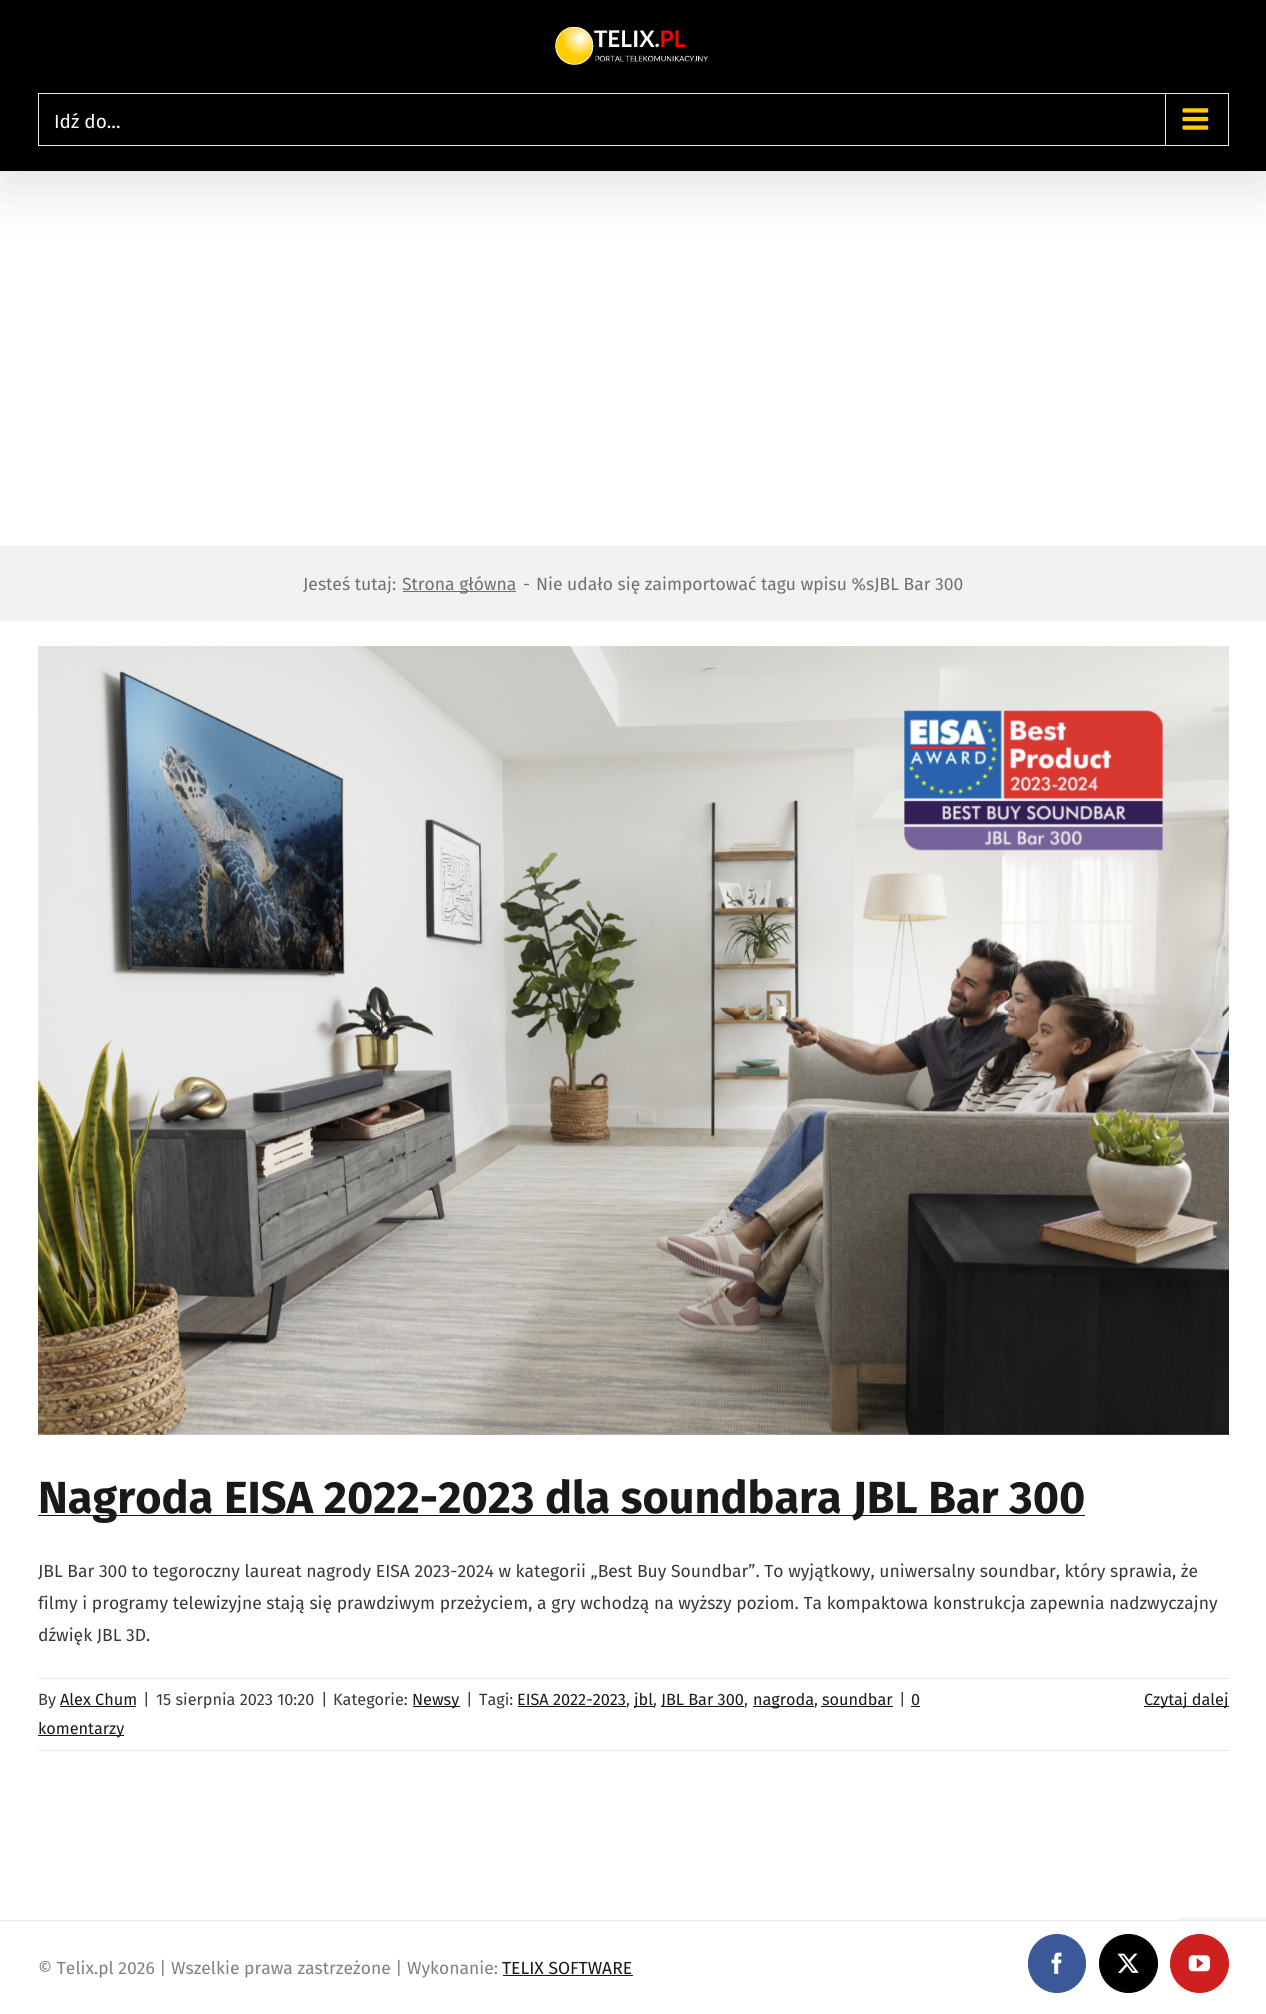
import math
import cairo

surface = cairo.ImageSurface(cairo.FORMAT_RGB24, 1266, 2014)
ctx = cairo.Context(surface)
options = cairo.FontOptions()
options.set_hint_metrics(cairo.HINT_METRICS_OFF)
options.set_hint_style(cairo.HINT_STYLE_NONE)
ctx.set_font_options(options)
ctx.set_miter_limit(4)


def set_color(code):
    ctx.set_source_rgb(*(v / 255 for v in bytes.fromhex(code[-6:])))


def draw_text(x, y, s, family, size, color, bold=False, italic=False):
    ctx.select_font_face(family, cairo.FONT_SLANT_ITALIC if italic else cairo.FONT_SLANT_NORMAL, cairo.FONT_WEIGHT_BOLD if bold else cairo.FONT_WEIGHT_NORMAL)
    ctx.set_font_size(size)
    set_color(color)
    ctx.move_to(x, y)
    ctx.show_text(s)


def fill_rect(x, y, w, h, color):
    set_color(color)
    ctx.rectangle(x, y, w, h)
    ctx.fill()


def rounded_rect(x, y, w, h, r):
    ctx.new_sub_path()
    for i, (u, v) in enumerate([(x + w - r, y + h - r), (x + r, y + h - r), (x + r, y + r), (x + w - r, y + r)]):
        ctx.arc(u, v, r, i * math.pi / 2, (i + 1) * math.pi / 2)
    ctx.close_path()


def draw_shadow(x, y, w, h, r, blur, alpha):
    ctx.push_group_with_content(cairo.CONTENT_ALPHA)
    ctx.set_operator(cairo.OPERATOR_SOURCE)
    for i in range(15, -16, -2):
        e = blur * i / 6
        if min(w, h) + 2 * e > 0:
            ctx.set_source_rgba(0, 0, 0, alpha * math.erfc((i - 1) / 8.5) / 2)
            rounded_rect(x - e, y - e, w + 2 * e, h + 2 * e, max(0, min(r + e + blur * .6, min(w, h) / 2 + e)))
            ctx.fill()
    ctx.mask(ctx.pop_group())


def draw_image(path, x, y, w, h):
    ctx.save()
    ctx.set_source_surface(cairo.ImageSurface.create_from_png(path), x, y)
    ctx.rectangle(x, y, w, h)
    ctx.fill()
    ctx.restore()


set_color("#ffffff")
ctx.paint()
set_color("#000000")
draw_shadow(3, 15, 1261, 166, 0, 31, 0.14)
fill_rect(0, 0, 1266, 171, "#000000")
draw_image("assets/img1.png", 555, 27, 153, 38)
ctx.rectangle(38.5, 93.5, 1190, 52)
set_color("#eeeeee")
ctx.set_line_width(1)
ctx.stroke()
draw_text(54, 128, "Idź do...", "Fira Sans", 19, "#ffffff")
fill_rect(1165, 94, 1, 51, "#eeeeee")
draw_image("assets/img2.png", 1182, 108, 27, 22)
fill_rect(0, 546, 1266, 75, "#f2f2f2")
draw_text(303, 590, "Jesteś tutaj:", "Fira Sans", 17.5, "#707070")
fill_rect(403, 591, 113, 1, "#707070")
draw_text(402, 590, "Strona główna", "Fira Sans", 17.5, "#707070")
draw_text(523, 590, "-", "Fira Sans", 17.5, "#707070")
draw_text(536, 590, "Nie udało się zaimportować tagu wpisu %sJBL Bar 300", "Fira Sans", 17.5, "#707070")
draw_image("assets/img3.png", 38, 646, 1191, 789)
fill_rect(38, 1515, 1047, 1, "#191919")
draw_text(38, 1513, "Nagroda EISA 2022-2023 dla soundbara JBL Bar 300", "Fira Sans", 45, "#191919", bold=True)
draw_text(38, 1577, "JBL Bar 300 to tegoroczny laureat nagrody EISA 2023-2024 w kategorii „Best Buy Soundbar”. To wyjątkowy, uniwersalny soundbar, który sprawia, że", "Fira Sans", 17.5, "#383838")
draw_text(38, 1609, "filmy i programy telewizyjne stają się prawdziwym przeżyciem, a gry wchodzą na wyższy poziom. Ta kompaktowa konstrukcja zapewnia nadzwyczajny", "Fira Sans", 17.5, "#383838")
draw_text(38, 1641, "dźwięk JBL 3D.", "Fira Sans", 17.5, "#383838")
fill_rect(38, 1678, 1191, 1, "#eaeaea")
fill_rect(38, 1750, 1191, 1, "#eaeaea")
draw_text(38, 1705, "By", "Fira Sans", 16.25, "#383838")
draw_text(60, 1705, "Alex Chum", "Fira Sans", 16.25, "#191919")
fill_rect(60, 1706, 76, 1, "#191919")
draw_text(143, 1705, "|", "Fira Sans", 16.25, "#383838")
draw_text(156, 1705, "15 sierpnia 2023 10:20", "Fira Sans", 16.25, "#383838")
draw_text(321, 1705, "|", "Fira Sans", 16.25, "#383838")
draw_text(333, 1705, "Kategorie:", "Fira Sans", 16.25, "#383838")
fill_rect(413, 1706, 47, 1, "#191919")
draw_text(412, 1705, "Newsy", "Fira Sans", 16.25, "#191919")
draw_text(466, 1705, "|", "Fira Sans", 16.25, "#383838")
draw_text(479, 1705, "Tagi:", "Fira Sans", 16.25, "#383838")
draw_text(517, 1705, "EISA 2022-2023", "Fira Sans", 16.25, "#191919")
draw_text(626, 1705, ",", "Fira Sans", 16.25, "#383838")
fill_rect(518, 1706, 108, 1, "#191919")
fill_rect(634, 1706, 20, 1, "#191919")
draw_text(634, 1705, "jbl", "Fira Sans", 16.25, "#191919")
draw_text(653, 1705, ",", "Fira Sans", 16.25, "#383838")
fill_rect(661, 1706, 83, 1, "#191919")
draw_text(661, 1705, "JBL Bar 300", "Fira Sans", 16.25, "#191919")
draw_text(744, 1705, ",", "Fira Sans", 16.25, "#383838")
fill_rect(753, 1706, 61, 1, "#191919")
draw_text(753, 1705, "nagroda", "Fira Sans", 16.25, "#191919")
draw_text(814, 1705, ",", "Fira Sans", 16.25, "#383838")
fill_rect(821, 1706, 72, 1, "#191919")
draw_text(822, 1705, "soundbar", "Fira Sans", 16.25, "#191919")
draw_text(899, 1705, "|", "Fira Sans", 16.25, "#383838")
draw_text(911, 1705, "0", "Fira Sans", 16.25, "#191919")
fill_rect(911, 1706, 9, 1, "#191919")
fill_rect(38, 1735, 86, 1, "#191919")
draw_text(38, 1734, "komentarzy", "Fira Sans", 16.25, "#191919")
fill_rect(1144, 1706, 85, 1, "#191919")
draw_text(1144, 1705, "Czytaj dalej", "Fira Sans", 16.25, "#191919")
set_color("#808080")
draw_shadow(1179, 1923, 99, 75, 2.5, 3, 1)
fill_rect(1173, 1921, 93, 83, "#ffffff")
fill_rect(0, 1920, 1266, 1, "#eaeaea")
draw_text(38, 1974, "© Telix.pl 2026 | Wszelkie prawa zastrzeżone | Wykonanie:", "Fira Sans", 17.5, "#808080")
draw_text(502, 1974, "TELIX SOFTWARE", "Fira Sans", 17.5, "#191919")
fill_rect(503, 1975, 130, 1, "#191919")
set_color("#3b5998")
rounded_rect(1028.5, 1934.5, 57, 58, 28.5)
ctx.fill_preserve()
ctx.stroke()
draw_image("assets/img4.png", 1051, 1952, 11, 22)
set_color("#000000")
ctx.arc(1128.5, 1963.5, 29, 0, 2 * math.pi)
ctx.fill_preserve()
ctx.stroke()
draw_image("assets/img5.png", 1117, 1953, 22, 20)
set_color("#cd201f")
ctx.arc(1199.5, 1963.5, 29, 0, 2 * math.pi)
ctx.fill_preserve()
ctx.stroke()
draw_image("assets/img6.png", 1188, 1955, 22, 17)
surface.write_to_png("output.png")
